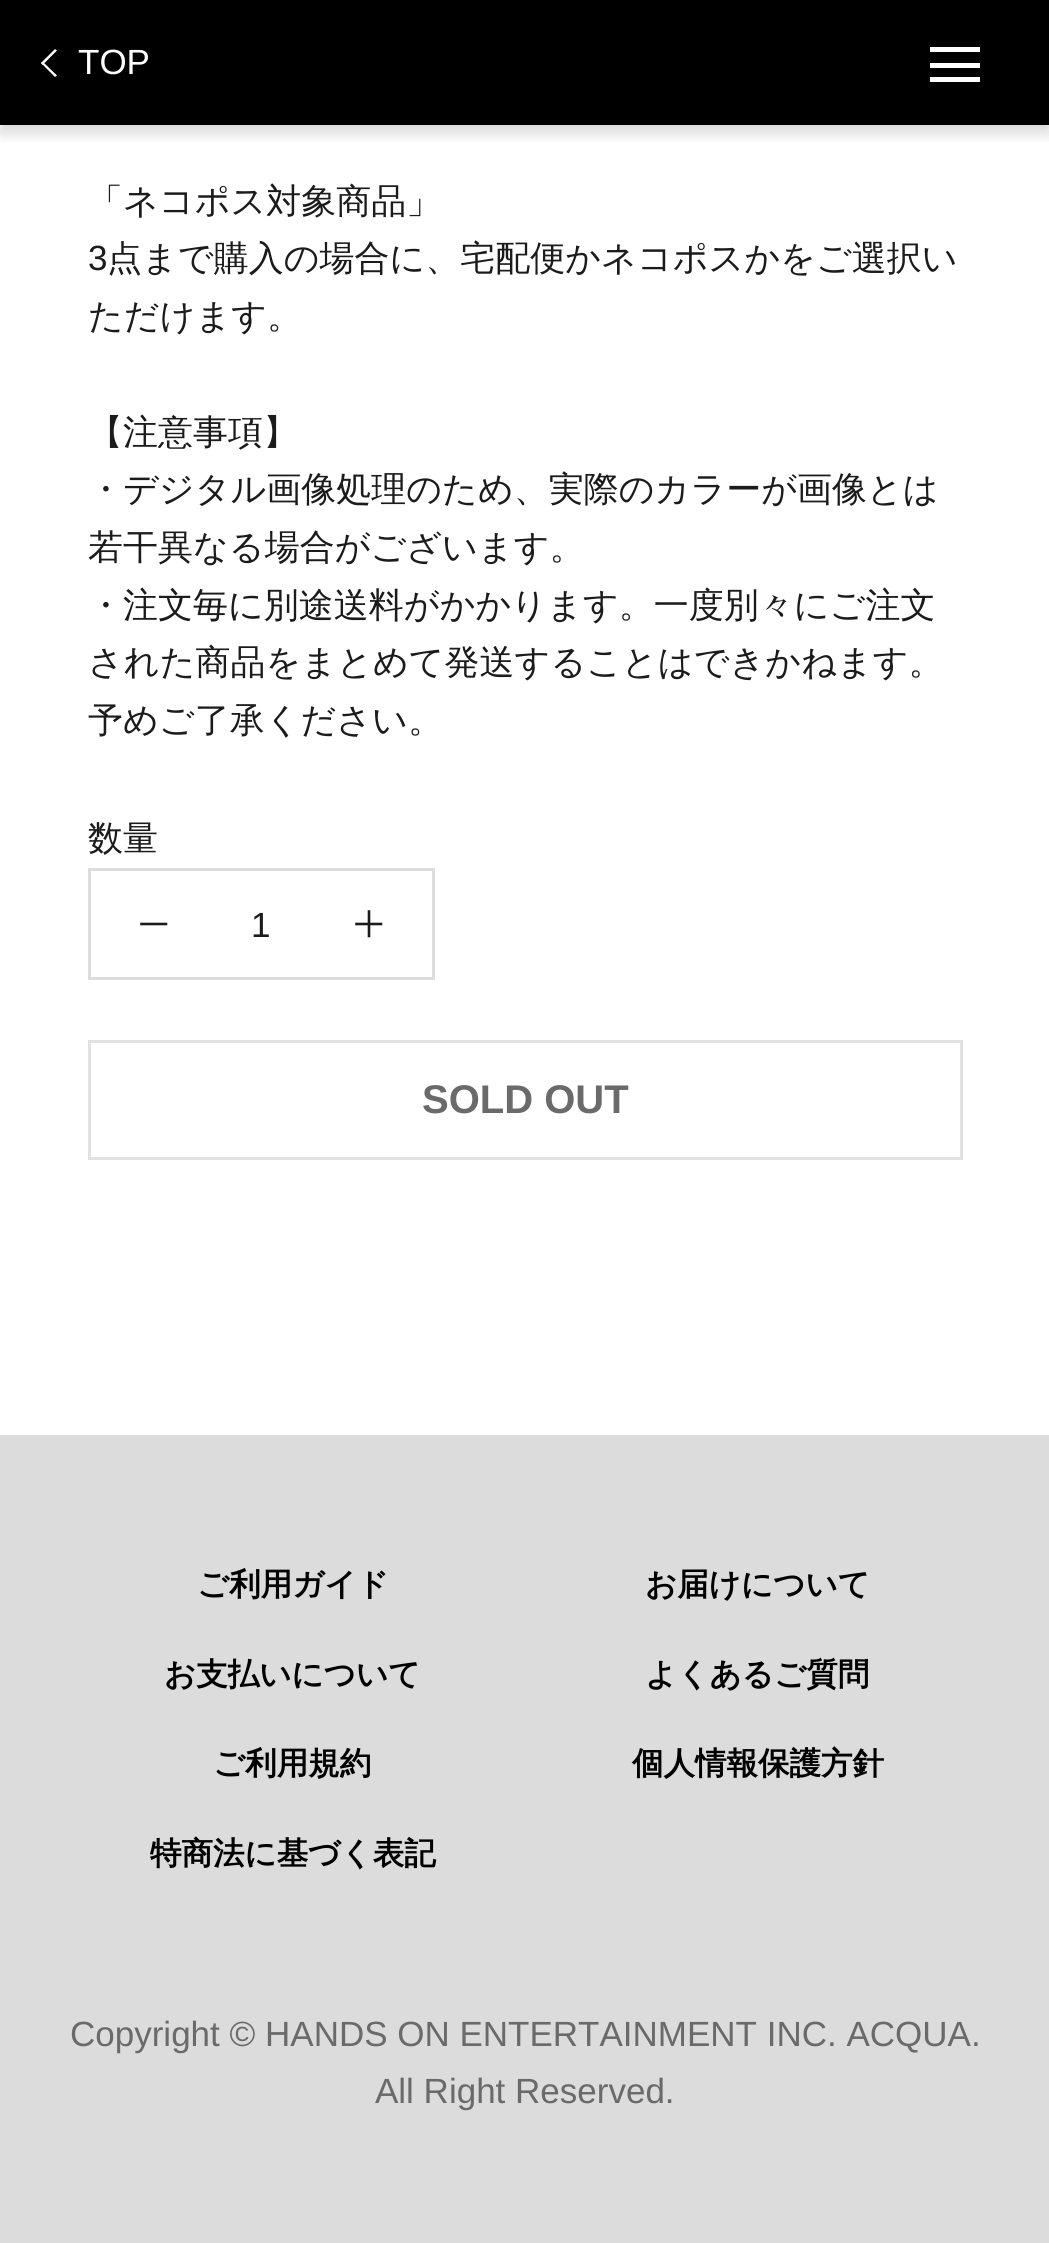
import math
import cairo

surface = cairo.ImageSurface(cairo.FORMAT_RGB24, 1049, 2243)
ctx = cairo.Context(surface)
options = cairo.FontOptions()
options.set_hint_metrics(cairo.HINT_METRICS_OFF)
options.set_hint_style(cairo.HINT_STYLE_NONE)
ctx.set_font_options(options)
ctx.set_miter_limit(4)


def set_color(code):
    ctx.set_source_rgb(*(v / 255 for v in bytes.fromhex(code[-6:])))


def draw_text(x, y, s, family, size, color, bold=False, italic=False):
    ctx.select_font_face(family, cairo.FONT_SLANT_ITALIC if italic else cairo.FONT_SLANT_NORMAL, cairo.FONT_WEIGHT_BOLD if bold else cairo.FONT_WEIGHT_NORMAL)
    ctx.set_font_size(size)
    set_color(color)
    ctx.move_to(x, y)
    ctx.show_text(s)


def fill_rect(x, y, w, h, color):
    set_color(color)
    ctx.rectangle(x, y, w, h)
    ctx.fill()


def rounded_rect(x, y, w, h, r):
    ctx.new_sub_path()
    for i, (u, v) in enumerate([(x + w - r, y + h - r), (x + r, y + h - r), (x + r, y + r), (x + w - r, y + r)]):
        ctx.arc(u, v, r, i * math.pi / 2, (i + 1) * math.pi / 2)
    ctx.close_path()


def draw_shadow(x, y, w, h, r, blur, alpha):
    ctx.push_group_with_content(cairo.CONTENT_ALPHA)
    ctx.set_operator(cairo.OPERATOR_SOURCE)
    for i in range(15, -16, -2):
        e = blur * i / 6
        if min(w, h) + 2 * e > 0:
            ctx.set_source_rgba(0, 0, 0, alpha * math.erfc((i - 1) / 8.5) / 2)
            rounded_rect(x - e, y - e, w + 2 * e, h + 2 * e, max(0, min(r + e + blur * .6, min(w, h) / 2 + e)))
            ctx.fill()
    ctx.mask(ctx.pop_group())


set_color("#ffffff")
ctx.paint()
fill_rect(0, 0, 1049, 125, "#000000")
ctx.save()
ctx.rectangle(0, 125, 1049, 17)
ctx.clip()
set_color("#000000")
draw_shadow(0, 8, 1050, 125, 0, 7.5, 0.16)
ctx.restore()
set_color("#ffffff")
ctx.new_path()
ctx.move_to(42.5, 61.5)
ctx.line_to(57, 75.5)
ctx.line_to(55, 77)
ctx.line_to(41, 63)
ctx.close_path()
ctx.fill()
ctx.new_path()
ctx.move_to(55, 49)
ctx.line_to(57, 50.5)
ctx.line_to(42.5, 65)
ctx.line_to(41, 63)
ctx.close_path()
ctx.fill()
draw_text(78, 74, "TOP", "Liberation Sans", 35, "#ffffff")
ctx.new_path()
ctx.move_to(930, 82)
ctx.line_to(930, 77)
ctx.line_to(980, 77)
ctx.line_to(980, 82)
ctx.close_path()
ctx.move_to(930, 63)
ctx.line_to(980, 63)
ctx.line_to(980, 68)
ctx.line_to(930, 68)
ctx.close_path()
ctx.move_to(930, 47)
ctx.line_to(980, 47)
ctx.line_to(980, 52)
ctx.line_to(930, 52)
ctx.close_path()
ctx.fill()
draw_text(88, 213, "「ネコポス対象商品」", "WenQuanYi Zen Hei Medium", 35, "#1c1b1b")
draw_text(88, 270, "3", "Liberation Sans", 35, "#1c1b1b")
draw_text(107, 270, "点まで購入の場合に、宅配便かネコポスかをご選択い", "WenQuanYi Zen Hei Medium", 35, "#1c1b1b")
draw_text(88, 328, "ただけます。", "WenQuanYi Zen Hei Medium", 35, "#1c1b1b")
draw_text(88, 444, "【注意事項】", "WenQuanYi Zen Hei Medium", 35, "#1c1b1b")
draw_text(88, 501, "・デジタル画像処理のため、実際のカラーが画像とは", "WenQuanYi Zen Hei Medium", 35, "#1c1b1b")
draw_text(88, 559, "若干異なる場合がございます。", "WenQuanYi Zen Hei Medium", 35, "#1c1b1b")
draw_text(88, 617, "・注文毎に別途送料がかかります。一度別々にご注文", "WenQuanYi Zen Hei Medium", 35, "#1c1b1b")
draw_text(88, 674, "された商品をまとめて発送することはできかねます。", "WenQuanYi Zen Hei Medium", 35, "#1c1b1b")
draw_text(88, 732, "予めご了承ください。", "WenQuanYi Zen Hei Medium", 35, "#1c1b1b")
draw_text(88, 850, "数量", "WenQuanYi Zen Hei Medium", 35, "#1c1b1b")
ctx.rectangle(89.5, 869.5, 344, 109)
set_color("#dddddd")
ctx.set_line_width(3)
ctx.stroke()
ctx.new_path()
ctx.move_to(141.5, 924)
ctx.line_to(166, 924)
set_color("#1c1b1b")
ctx.set_line_width(2.6)
ctx.set_line_cap(cairo.LINE_CAP_SQUARE)
ctx.stroke()
draw_text(251, 937, "1", "Liberation Sans", 35, "#1c1b1b")
ctx.new_path()
ctx.move_to(369, 911.5)
ctx.line_to(369, 936)
ctx.move_to(356.5, 924)
ctx.line_to(381, 924)
ctx.stroke()
ctx.rectangle(89.5, 1041.5, 872, 117)
set_color("#e1e1e1")
ctx.set_line_width(3)
ctx.set_line_cap(cairo.LINE_CAP_BUTT)
ctx.stroke()
draw_text(422, 1113, "SOLD OUT", "Liberation Sans", 40, "#6a6a6a", bold=True)
fill_rect(0, 1435, 1049, 808, "#dcdcdc")
draw_text(197, 1595, "ご利用ガイド", "WenQuanYi Zen Hei", 31.5, "#000000", bold=True)
draw_text(645, 1595, "お届けについて", "WenQuanYi Zen Hei", 31.5, "#000000", bold=True)
draw_text(164, 1685, "お支払いについて", "WenQuanYi Zen Hei", 31.5, "#000000", bold=True)
draw_text(645, 1685, "よくあるご質問", "WenQuanYi Zen Hei", 31.5, "#000000", bold=True)
draw_text(213, 1774, "ご利用規約", "WenQuanYi Zen Hei", 31.5, "#000000", bold=True)
draw_text(632, 1774, "個人情報保護方針", "WenQuanYi Zen Hei", 31.5, "#000000", bold=True)
draw_text(150, 1864, "特商法に基づく表記", "WenQuanYi Zen Hei", 31.5, "#000000", bold=True)
draw_text(70, 2046, "Copyright © HANDS ON ENTERTAINMENT INC. ACQUA.", "Liberation Sans", 35, "#6a6a6a")
draw_text(375, 2103, "All Right Reserved.", "Liberation Sans", 35, "#6a6a6a")
surface.write_to_png("output.png")
